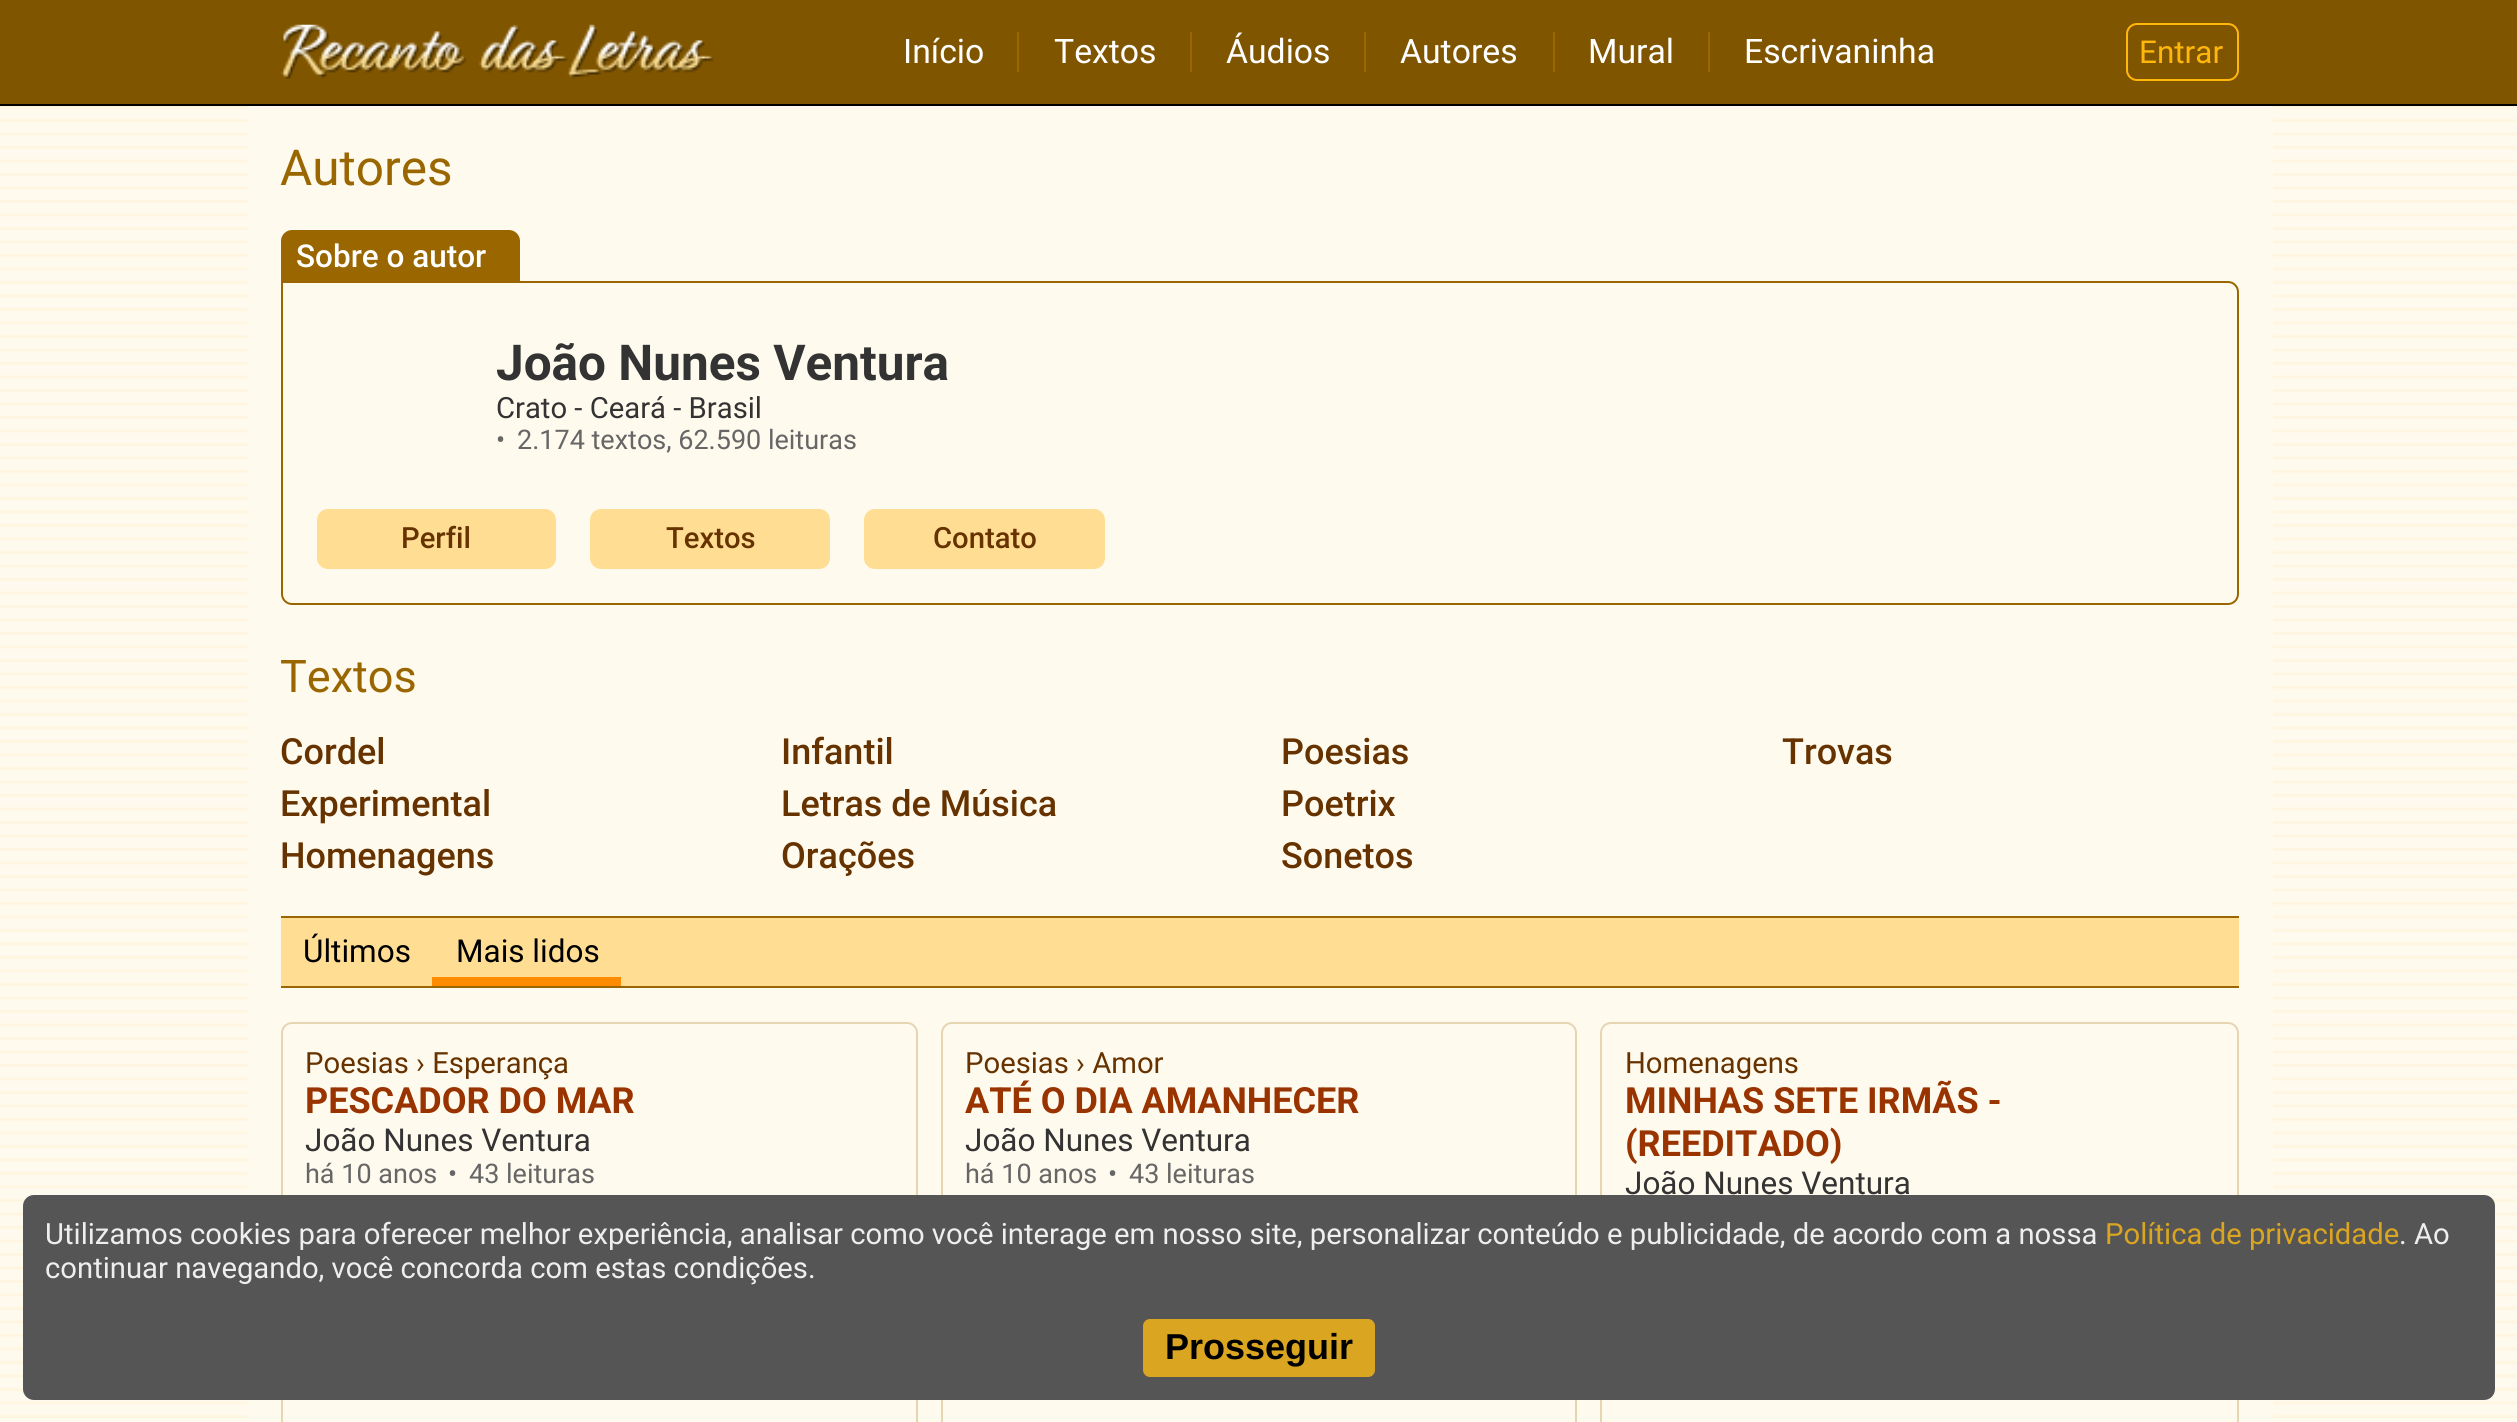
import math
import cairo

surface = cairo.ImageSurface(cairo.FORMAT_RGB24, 2517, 1422)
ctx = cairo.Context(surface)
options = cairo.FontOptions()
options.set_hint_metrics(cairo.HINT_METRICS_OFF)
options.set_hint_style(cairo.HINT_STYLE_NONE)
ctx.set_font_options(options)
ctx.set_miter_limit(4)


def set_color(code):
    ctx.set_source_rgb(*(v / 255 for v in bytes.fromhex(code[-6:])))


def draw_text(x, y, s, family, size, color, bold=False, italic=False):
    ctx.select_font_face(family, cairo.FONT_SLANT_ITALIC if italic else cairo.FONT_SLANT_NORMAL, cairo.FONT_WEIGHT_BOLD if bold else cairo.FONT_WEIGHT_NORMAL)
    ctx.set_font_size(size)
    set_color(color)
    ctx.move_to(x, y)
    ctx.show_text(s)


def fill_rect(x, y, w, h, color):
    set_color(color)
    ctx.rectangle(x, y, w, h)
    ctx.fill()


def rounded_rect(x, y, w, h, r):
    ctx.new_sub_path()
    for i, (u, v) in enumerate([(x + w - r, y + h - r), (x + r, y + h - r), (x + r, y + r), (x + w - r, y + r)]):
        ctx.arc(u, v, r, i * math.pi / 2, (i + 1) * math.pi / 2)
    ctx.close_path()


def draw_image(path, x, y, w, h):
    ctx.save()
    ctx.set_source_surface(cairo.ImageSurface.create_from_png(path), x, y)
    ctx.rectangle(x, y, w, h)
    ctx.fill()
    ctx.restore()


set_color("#fffaee")
ctx.paint()
draw_image("assets/img1.png", 0, 106, 2517, 1312)
fill_rect(0, 0, 2517, 104, "#805500")
fill_rect(0, 104, 2517, 2, "#000000")
draw_image("assets/img2.png", 281, 24, 433, 55)
fill_rect(1017, 32, 2, 40, "#996600")
draw_text(903, 63, "Início", "Roboto", 33.75, "#ffffff")
fill_rect(1190, 32, 2, 40, "#996600")
draw_text(1054, 63, "Textos", "Roboto", 33.75, "#ffffff")
fill_rect(1364, 32, 2, 40, "#996600")
draw_text(1226, 63, "Áudios", "Roboto", 33.75, "#ffffff")
fill_rect(1553, 32, 2, 40, "#996600")
draw_text(1400, 63, "Autores", "Roboto", 33.75, "#ffffff")
fill_rect(1708, 32, 2, 40, "#996600")
draw_text(1588, 63, "Mural", "Roboto", 33.75, "#ffffff")
draw_text(1744, 63, "Escrivaninha", "Roboto", 33.75, "#ffffff")
rounded_rect(2127, 24, 111, 56, 10)
set_color("#ffb70c")
ctx.stroke()
draw_text(2139, 63, "Entrar", "Roboto", 31.5, "#ffb70c")
fill_rect(248, 106, 2025, 1312, "#fffaee")
draw_text(280, 185, "Autores", "Roboto", 49.5, "#996600")
ctx.new_path()
ctx.move_to(292, 230)
ctx.line_to(509, 230)
ctx.curve_to(515, 230, 520, 235, 520, 241)
ctx.line_to(520, 281)
ctx.line_to(281, 281)
ctx.line_to(281, 241)
ctx.curve_to(281, 235, 286, 230, 292, 230)
ctx.close_path()
ctx.fill()
draw_text(296, 267, "Sobre o autor", "Roboto Medium", 31.5, "#ffffff")
ctx.new_path()
ctx.move_to(282, 282)
ctx.line_to(2228, 282)
ctx.curve_to(2233.5, 282, 2238, 286.5, 2238, 292)
ctx.line_to(2238, 594)
ctx.curve_to(2238, 599.5, 2233.5, 604, 2228, 604)
ctx.line_to(292, 604)
ctx.curve_to(286.5, 604, 282, 599.5, 282, 594)
ctx.close_path()
set_color("#996600")
ctx.stroke()
draw_text(496, 380, "João Nunes Ventura", "Roboto", 49.5, "#333333", bold=True)
draw_text(496, 418, "Crato - Ceará - Brasil", "Roboto", 29.25, "#333333")
draw_text(496, 449, "•", "Roboto", 27, "#666666")
draw_text(517, 449, "2.174 textos, 62.590 leituras", "Roboto", 27, "#666666")
set_color("#ffde94")
rounded_rect(317, 509, 239, 60, 11)
ctx.fill()
draw_text(401, 548, "Perfil", "Roboto Medium", 29.25, "#663300")
set_color("#ffde94")
rounded_rect(590, 509, 240, 60, 11)
ctx.fill()
draw_text(666, 548, "Textos", "Roboto Medium", 29.25, "#663300")
set_color("#ffde94")
rounded_rect(864, 509, 241, 60, 11)
ctx.fill()
draw_text(933, 548, "Contato", "Roboto Medium", 29.25, "#663300")
draw_text(280, 692, "Textos", "Roboto", 45, "#996600")
draw_text(280, 764, "Cordel", "Roboto Medium", 36, "#663300")
draw_text(781, 764, "Infantil", "Roboto Medium", 36, "#663300")
draw_text(1281, 764, "Poesias", "Roboto Medium", 36, "#663300")
draw_text(1782, 764, "Trovas", "Roboto Medium", 36, "#663300")
draw_text(280, 816, "Experimental", "Roboto Medium", 36, "#663300")
draw_text(781, 816, "Letras de Música", "Roboto Medium", 36, "#663300")
draw_text(1281, 816, "Poetrix", "Roboto Medium", 36, "#663300")
draw_text(280, 868, "Homenagens", "Roboto Medium", 36, "#663300")
draw_text(781, 868, "Orações", "Roboto Medium", 36, "#663300")
draw_text(1281, 868, "Sonetos", "Roboto Medium", 36, "#663300")
fill_rect(281, 918, 1958, 68, "#ffde94")
fill_rect(281, 916, 1958, 2, "#996600")
fill_rect(281, 986, 1958, 2, "#996600")
draw_text(303, 962, "Últimos", "Roboto", 31.5, "#000000")
fill_rect(432, 977, 189, 9, "#ff8c00")
draw_text(456, 962, "Mais lidos", "Roboto", 31.5, "#000000")
rounded_rect(282, 1023, 635, 234, 10)
set_color("#e6d5b3")
ctx.stroke()
draw_text(305, 1073, "Poesias › Esperança", "Roboto", 29.25, "#663300")
draw_text(305, 1113, "PESCADOR DO MAR", "Roboto", 36, "#993300", bold=True)
draw_text(305, 1151, "João Nunes Ventura", "Roboto", 31.5, "#333333")
draw_text(305, 1183, "há 10 anos", "Roboto", 27, "#666666")
draw_text(448, 1183, "•", "Roboto", 27, "#666666")
draw_text(469, 1183, "43 leituras", "Roboto", 27, "#666666")
rounded_rect(942, 1023, 634, 234, 10)
set_color("#e6d5b3")
ctx.stroke()
draw_text(965, 1073, "Poesias › Amor", "Roboto", 29.25, "#663300")
draw_text(965, 1113, "ATÉ O DIA AMANHECER", "Roboto", 36, "#993300", bold=True)
draw_text(965, 1151, "João Nunes Ventura", "Roboto", 31.5, "#333333")
draw_text(965, 1183, "há 10 anos", "Roboto", 27, "#666666")
draw_text(1108, 1183, "•", "Roboto", 27, "#666666")
draw_text(1129, 1183, "43 leituras", "Roboto", 27, "#666666")
rounded_rect(1601, 1023, 637, 234, 10)
set_color("#e6d5b3")
ctx.stroke()
draw_text(1625, 1073, "Homenagens", "Roboto", 29.25, "#663300")
draw_text(1625, 1113, "MINHAS SETE IRMÃS -", "Roboto", 36, "#993300", bold=True)
draw_text(1625, 1156, "(REEDITADO)", "Roboto", 36, "#993300", bold=True)
draw_text(1625, 1194, "João Nunes Ventura", "Roboto", 31.5, "#333333")
ctx.rectangle(282, 1281, 635, 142)
set_color("#e6d5b3")
ctx.stroke()
ctx.rectangle(942, 1281, 634, 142)
ctx.stroke()
ctx.rectangle(1601, 1281, 637, 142)
ctx.stroke()
set_color("#555555")
rounded_rect(23, 1195, 2472, 205, 11)
ctx.fill()
draw_text(45, 1244, "Utilizamos cookies para oferecer melhor experiência, analisar como você interage em nosso site, personalizar conteúdo e publicidade, de acordo com a nossa", "Roboto", 29.25, "#eeeeee")
draw_text(2105, 1244, "Política de privacidade", "Roboto", 29.25, "#daa520")
draw_text(2399, 1244, ". Ao", "Roboto", 29.25, "#eeeeee")
draw_text(45, 1278, "continuar navegando, você concorda com estas condições.", "Roboto", 29.25, "#eeeeee")
set_color("#daa520")
rounded_rect(1143, 1319, 232, 58, 7)
ctx.fill()
draw_text(1165, 1359, "Prosseguir", "Liberation Sans", 36, "#000000", bold=True)
surface.write_to_png("output.png")
